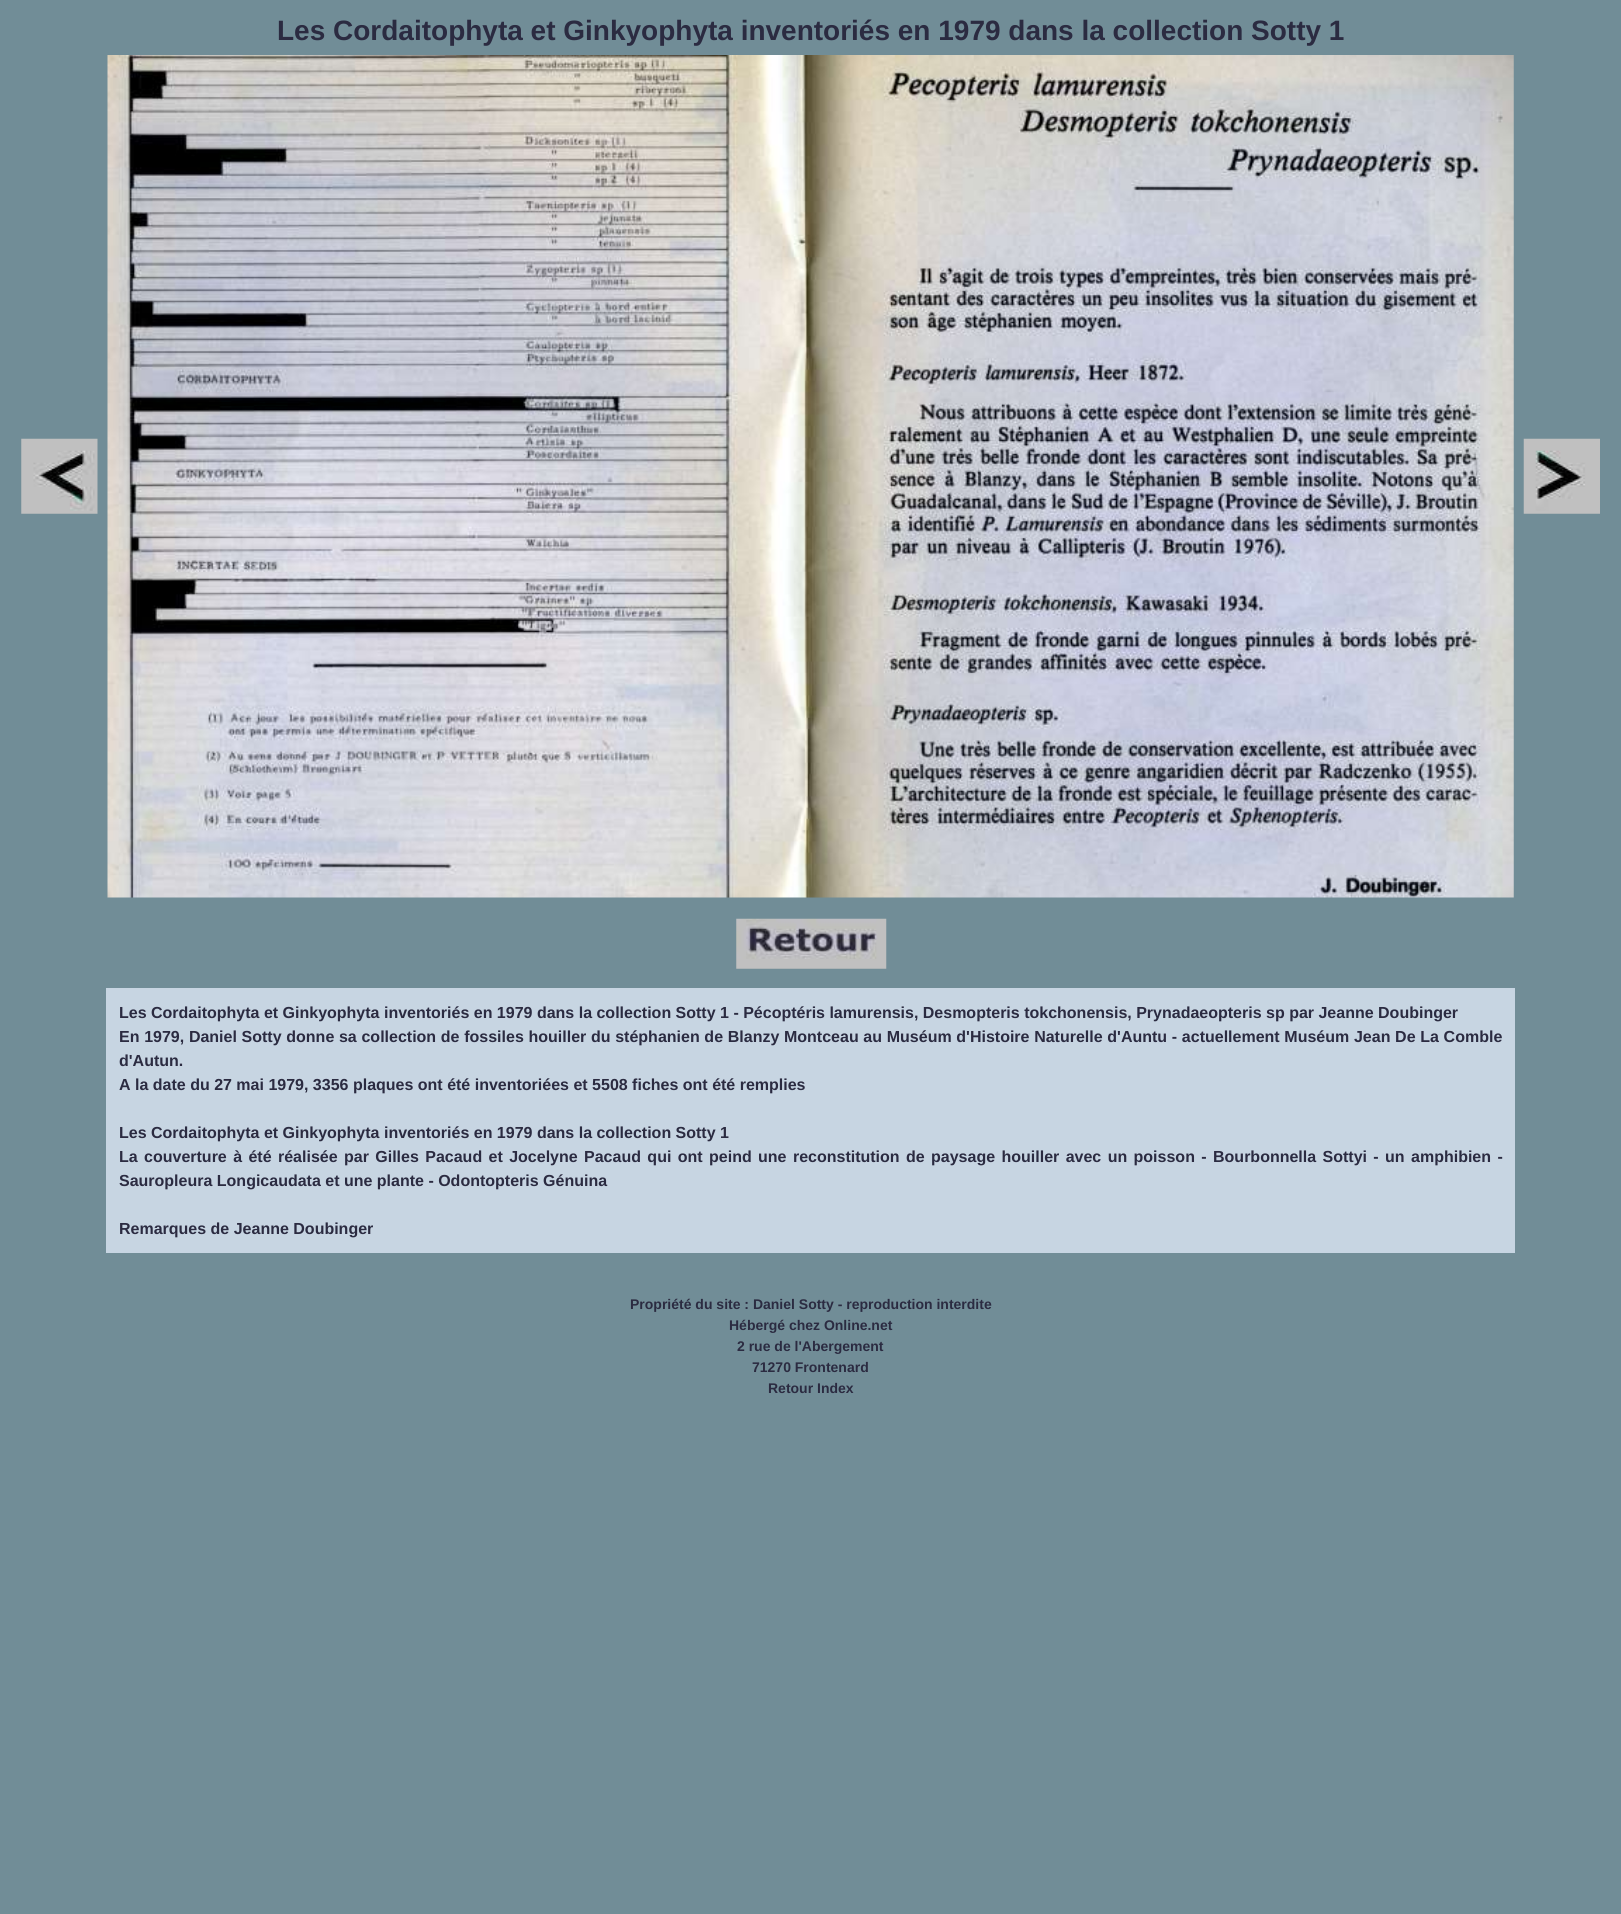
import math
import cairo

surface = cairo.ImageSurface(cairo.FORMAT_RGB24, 1621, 1914)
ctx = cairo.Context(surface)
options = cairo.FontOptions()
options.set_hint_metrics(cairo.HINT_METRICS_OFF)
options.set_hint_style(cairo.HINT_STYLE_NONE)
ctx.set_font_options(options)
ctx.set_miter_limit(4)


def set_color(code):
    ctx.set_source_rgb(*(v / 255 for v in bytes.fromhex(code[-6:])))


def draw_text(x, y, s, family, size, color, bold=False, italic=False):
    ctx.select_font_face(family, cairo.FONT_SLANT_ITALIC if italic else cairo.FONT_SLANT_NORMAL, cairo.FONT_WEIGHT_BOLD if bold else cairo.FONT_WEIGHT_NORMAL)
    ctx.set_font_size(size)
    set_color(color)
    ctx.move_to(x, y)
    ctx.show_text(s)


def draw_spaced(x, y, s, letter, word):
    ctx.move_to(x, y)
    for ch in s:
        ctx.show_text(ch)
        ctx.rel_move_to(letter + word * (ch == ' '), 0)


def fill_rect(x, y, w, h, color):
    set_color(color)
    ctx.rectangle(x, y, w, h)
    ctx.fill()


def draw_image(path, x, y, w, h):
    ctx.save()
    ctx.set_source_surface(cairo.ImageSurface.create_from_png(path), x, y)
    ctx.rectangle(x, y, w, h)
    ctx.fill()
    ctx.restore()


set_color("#718d97")
ctx.paint()
draw_text(277, 40, "Les Cordaitophyta et Ginkyophyta inventoriés en 1979 dans la collection Sotty 1", "Liberation Sans", 28, "#2b2b41", bold=True)
draw_image("assets/img1.png", 21, 438, 77, 76)
draw_image("assets/img2.png", 107, 55, 1407, 843)
draw_image("assets/img3.png", 1523, 438, 77, 76)
draw_image("assets/img4.png", 736, 918, 151, 51)
fill_rect(106, 988, 1409, 265, "#c7d5e2")
draw_text(119, 1018, "Les Cordaitophyta et Ginkyophyta inventoriés en 1979 dans la collection Sotty 1 - Pécoptéris lamurensis, Desmopteris tokchonensis, Prynadaeopteris sp par Jeanne Doubinger", "Liberation Sans", 16, "#2b2b41", bold=True)
draw_spaced(119, 1042, "En 1979, Daniel Sotty donne sa collection de fossiles houiller du stéphanien de Blanzy Montceau au Muséum d'Histoire Naturelle d'Auntu - actuellement Muséum Jean De La Comble", 0, 0.25)
draw_text(119, 1066, "d'Autun.", "Liberation Sans", 16, "#2b2b41", bold=True)
draw_text(119, 1090, "A la date du 27 mai 1979, 3356 plaques ont été inventoriées et 5508 fiches ont été remplies", "Liberation Sans", 16, "#2b2b41", bold=True)
draw_text(119, 1138, "Les Cordaitophyta et Ginkyophyta inventoriés en 1979 dans la collection Sotty 1", "Liberation Sans", 16, "#2b2b41", bold=True)
draw_spaced(119, 1162, "La couverture à été réalisée par Gilles Pacaud et Jocelyne Pacaud qui ont peind une reconstitution de paysage houiller avec un poisson - Bourbonnella Sottyi - un amphibien -", 0, 1.95)
draw_text(119, 1186, "Sauropleura Longicaudata et une plante - Odontopteris Génuina", "Liberation Sans", 16, "#2b2b41", bold=True)
draw_text(119, 1234, "Remarques de Jeanne Doubinger", "Liberation Sans", 16, "#2b2b41", bold=True)
draw_text(630, 1309, "Propriété du site : Daniel Sotty - reproduction interdite", "Liberation Sans", 14, "#2b2b41", bold=True)
draw_text(729, 1330, "Hébergé chez Online.net", "Liberation Sans", 14, "#2b2b41", bold=True)
draw_text(737, 1351, "2 rue de l'Abergement", "Liberation Sans", 14, "#2b2b41", bold=True)
draw_text(752, 1372, "71270 Frontenard", "Liberation Sans", 14, "#2b2b41", bold=True)
draw_text(768, 1393, "Retour Index", "Liberation Sans", 14, "#2b2b41", bold=True)
surface.write_to_png("output.png")
